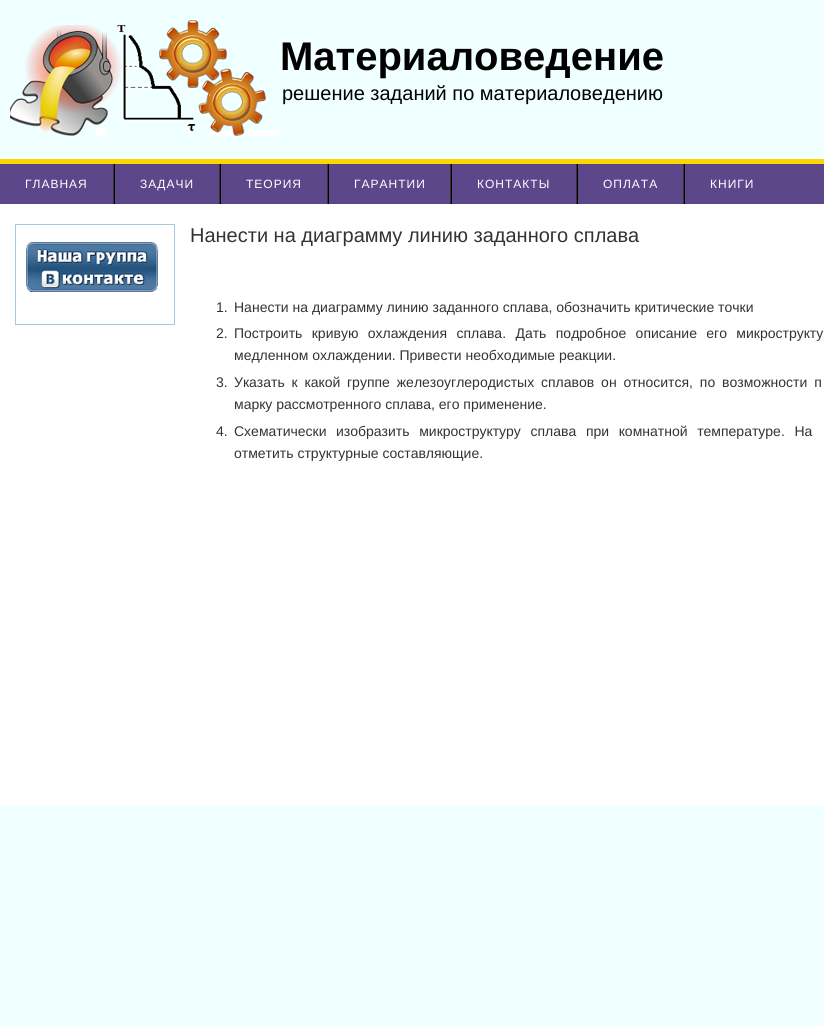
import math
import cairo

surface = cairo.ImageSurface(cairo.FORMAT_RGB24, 824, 1026)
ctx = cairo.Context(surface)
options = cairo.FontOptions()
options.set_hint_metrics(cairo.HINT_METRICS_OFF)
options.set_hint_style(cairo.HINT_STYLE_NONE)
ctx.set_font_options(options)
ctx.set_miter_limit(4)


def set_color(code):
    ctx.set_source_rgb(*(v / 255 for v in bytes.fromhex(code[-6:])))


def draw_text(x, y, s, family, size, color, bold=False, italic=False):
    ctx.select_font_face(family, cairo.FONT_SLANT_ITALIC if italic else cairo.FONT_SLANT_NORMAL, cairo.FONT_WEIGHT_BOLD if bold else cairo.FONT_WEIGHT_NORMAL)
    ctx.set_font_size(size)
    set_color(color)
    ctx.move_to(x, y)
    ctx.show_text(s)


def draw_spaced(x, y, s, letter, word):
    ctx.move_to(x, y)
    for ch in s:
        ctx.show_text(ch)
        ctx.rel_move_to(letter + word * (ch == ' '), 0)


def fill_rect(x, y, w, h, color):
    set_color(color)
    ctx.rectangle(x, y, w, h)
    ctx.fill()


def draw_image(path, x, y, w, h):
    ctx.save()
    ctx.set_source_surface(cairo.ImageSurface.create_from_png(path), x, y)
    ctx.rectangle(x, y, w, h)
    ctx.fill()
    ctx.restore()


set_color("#f0ffff")
ctx.paint()
draw_image("assets/img1.png", 10, 20, 270, 116)
draw_text(280, 70, "Материаловедение", "Liberation Sans", 40, "#000000", bold=True)
draw_text(282, 100, "решение заданий по материаловедению", "Liberation Sans", 20, "#000000")
fill_rect(0, 164, 824, 40, "#5d478b")
fill_rect(0, 159, 824, 5, "#ffd700")
fill_rect(113, 164, 1, 40, "#333333")
ctx.set_font_size(12)
set_color("#ffffff")
draw_spaced(25, 188, "ГЛАВНАЯ", 1, 0)
fill_rect(219, 164, 1, 40, "#333333")
fill_rect(114, 164, 1, 40, "#000000")
set_color("#ffffff")
draw_spaced(140, 188, "ЗАДАЧИ", 1, 0)
fill_rect(327, 164, 1, 40, "#333333")
fill_rect(220, 164, 1, 40, "#000000")
set_color("#ffffff")
draw_spaced(246, 188, "ТЕОРИЯ", 1, 0)
fill_rect(450, 164, 1, 40, "#333333")
fill_rect(328, 164, 1, 40, "#000000")
set_color("#ffffff")
draw_spaced(354, 188, "ГАРАНТИИ", 1, 0)
fill_rect(576, 164, 1, 40, "#333333")
fill_rect(451, 164, 1, 40, "#000000")
set_color("#ffffff")
draw_spaced(477, 188, "КОНТАКТЫ", 1, 0)
fill_rect(683, 164, 1, 40, "#333333")
fill_rect(577, 164, 1, 40, "#000000")
set_color("#ffffff")
draw_spaced(603, 188, "ОПЛАТА", 1, 0)
fill_rect(684, 164, 1, 40, "#000000")
set_color("#ffffff")
draw_spaced(710, 188, "КНИГИ", 1, 0)
fill_rect(0, 204, 824, 601, "#ffffff")
ctx.rectangle(15.5, 224.5, 159, 100)
set_color("#a3cbdc")
ctx.set_line_width(1)
ctx.stroke()
draw_image("assets/img2.png", 26, 242, 132, 50)
draw_text(190, 242, "Нанести на диаграмму линию заданного сплава", "Liberation Sans", 20, "#333333")
draw_text(216, 312, "1.", "Liberation Sans", 14, "#333333")
draw_text(234, 312, "Нанести на диаграмму линию заданного сплава, обозначить критические точки", "Liberation Sans", 14, "#333333")
draw_text(216, 338, "2.", "Liberation Sans", 14, "#333333")
draw_spaced(234, 338, "Построить кривую охлаждения сплава. Дать подробное описание его микрострукту", 0, 5.5)
draw_text(234, 360, "медленном охлаждении. Привести необходимые реакции.", "Liberation Sans", 14, "#333333")
draw_text(216, 387, "3.", "Liberation Sans", 14, "#333333")
draw_spaced(234, 387, "Указать к какой", 0, 3)
draw_spaced(347, 387, "группе железоуглеродистых сплавов он относится, по возможности п", 0, 3)
draw_text(234, 409, "марку рассмотренного сплава, его применение.", "Liberation Sans", 14, "#333333")
draw_text(216, 436, "4.", "Liberation Sans", 14, "#333333")
draw_text(234, 436, "Схематически", "Liberation Sans", 14, "#333333")
draw_spaced(336, 436, "изобразить микроструктуру сплава при комнатной температуре. На", 0, 5.75)
draw_text(234, 458, "отметить структурные составляющие.", "Liberation Sans", 14, "#333333")
surface.write_to_png("output.png")
